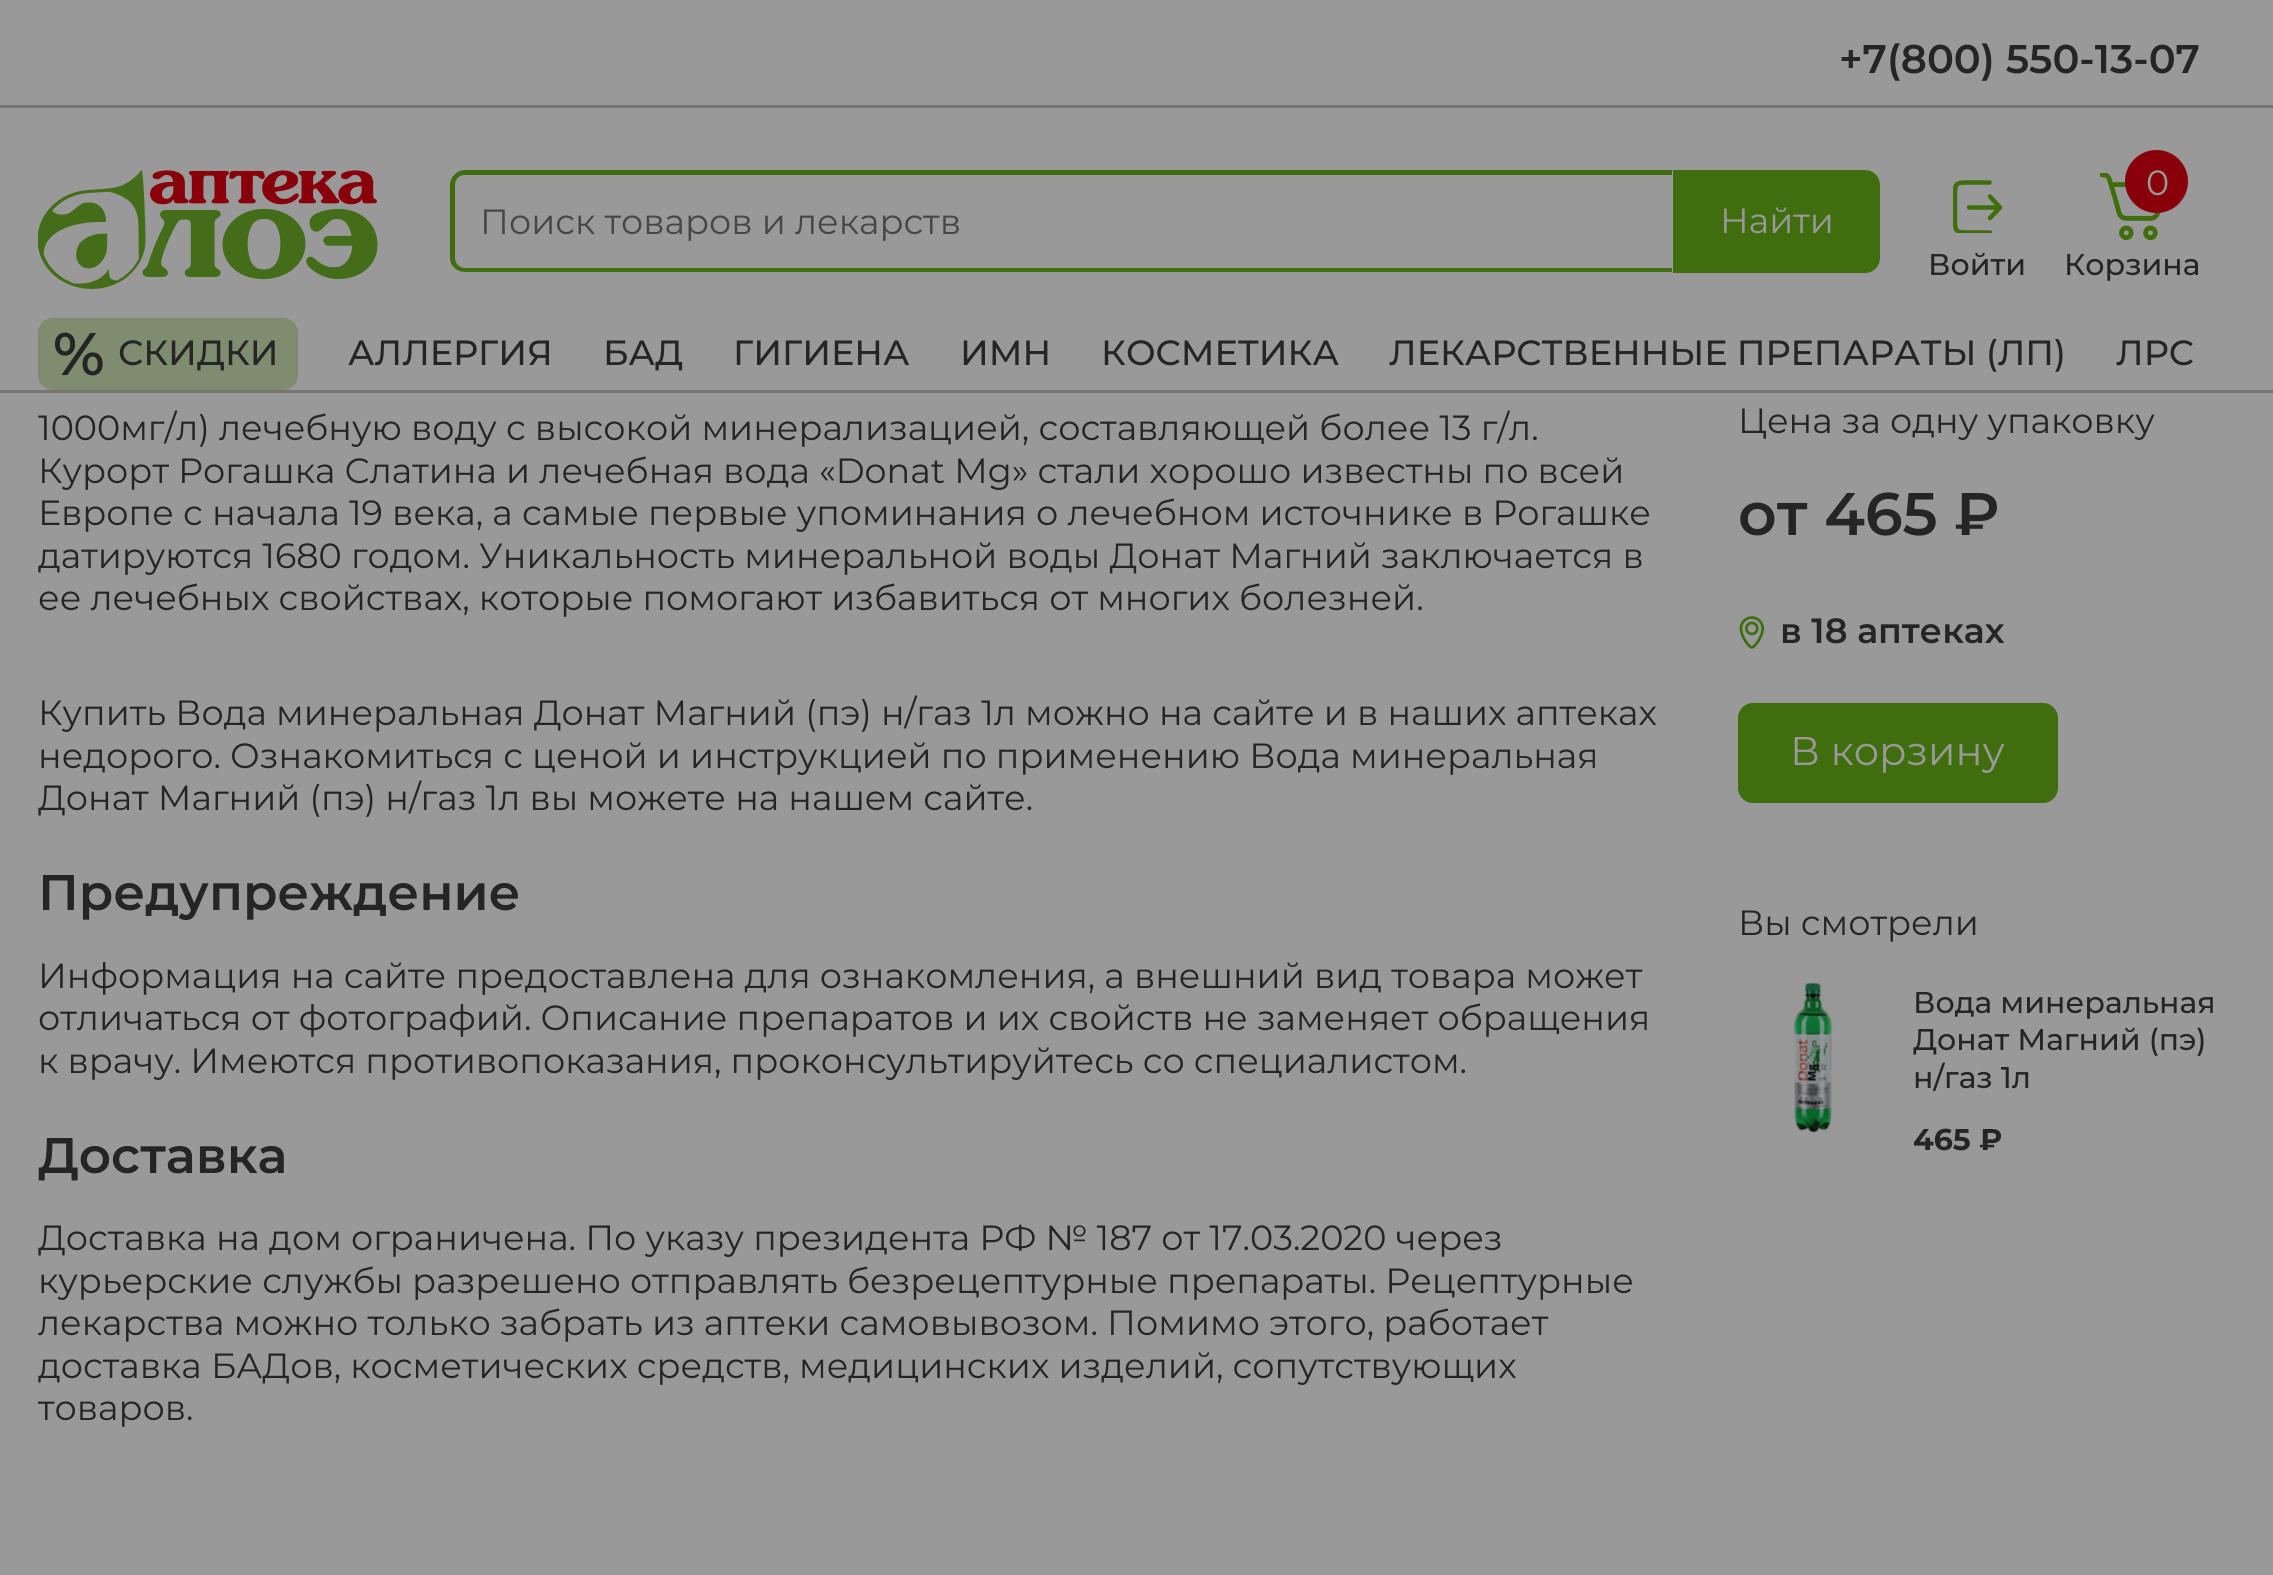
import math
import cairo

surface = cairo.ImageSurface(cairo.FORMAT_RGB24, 2273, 1575)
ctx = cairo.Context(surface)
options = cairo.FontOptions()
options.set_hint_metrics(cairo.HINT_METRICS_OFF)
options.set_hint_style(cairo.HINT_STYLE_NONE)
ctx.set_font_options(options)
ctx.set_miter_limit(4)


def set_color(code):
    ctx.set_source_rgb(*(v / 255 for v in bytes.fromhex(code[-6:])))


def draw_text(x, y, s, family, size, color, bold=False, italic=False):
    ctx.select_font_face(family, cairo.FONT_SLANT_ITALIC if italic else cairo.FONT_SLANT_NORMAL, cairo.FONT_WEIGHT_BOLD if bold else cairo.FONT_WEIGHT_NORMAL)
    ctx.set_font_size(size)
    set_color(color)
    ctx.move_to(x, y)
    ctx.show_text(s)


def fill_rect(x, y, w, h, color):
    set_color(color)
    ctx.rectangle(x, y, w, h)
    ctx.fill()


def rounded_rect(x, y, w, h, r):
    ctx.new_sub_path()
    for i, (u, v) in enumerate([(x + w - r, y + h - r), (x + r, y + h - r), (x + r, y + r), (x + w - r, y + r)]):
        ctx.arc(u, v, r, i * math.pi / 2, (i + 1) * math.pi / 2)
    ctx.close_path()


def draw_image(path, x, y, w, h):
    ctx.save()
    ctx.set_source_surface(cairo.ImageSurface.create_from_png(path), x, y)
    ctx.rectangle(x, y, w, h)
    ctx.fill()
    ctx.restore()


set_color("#999999")
ctx.paint()
fill_rect(0, 105, 2273, 3, "#767676")
draw_text(1839, 73, "+7(800) 550-13-07", "Montserrat SemiBold", 40, "#252525")
fill_rect(0, 390, 2273, 3, "#767676")
draw_image("assets/img1.png", 38, 170, 340, 119)
set_color("#406d0d")
ctx.set_fill_rule(cairo.FILL_RULE_EVEN_ODD)
ctx.new_path()
ctx.move_to(465, 170)
ctx.line_to(1672, 170)
ctx.line_to(1672, 272)
ctx.line_to(465, 272)
ctx.curve_to(457, 272, 450, 266, 450, 258)
ctx.line_to(450, 185)
ctx.curve_to(450, 177, 457, 170, 465, 170)
ctx.close_path()
ctx.move_to(465, 175)
ctx.line_to(1672, 175)
ctx.line_to(1672, 268)
ctx.line_to(465, 268)
ctx.curve_to(459, 268, 455, 263, 455, 258)
ctx.line_to(455, 185)
ctx.curve_to(455, 179, 459, 175, 465, 175)
ctx.close_path()
ctx.fill()
draw_text(480, 234, "Поиск товаров и лекарств", "Montserrat", 35, "#464646")
set_color("#406d0d")
ctx.new_path()
ctx.move_to(1674.5, 171.5)
ctx.line_to(1865, 171.5)
ctx.curve_to(1872.5, 171.5, 1878.5, 177.5, 1878.5, 185)
ctx.line_to(1878.5, 258)
ctx.curve_to(1878.5, 265.5, 1872.5, 271.5, 1865, 271.5)
ctx.line_to(1674.5, 271.5)
ctx.close_path()
ctx.fill_preserve()
ctx.set_line_width(3)
ctx.stroke()
draw_text(1720, 233, "Найти", "Montserrat", 35, "#999999")
ctx.save()
ctx.set_fill_rule(cairo.FILL_RULE_WINDING)
ctx.rectangle(1953, 180, 50, 53)
ctx.clip()
ctx.new_path()
ctx.move_to(1990, 218)
ctx.line_to(2000, 207.5)
ctx.line_to(1990, 196.5)
ctx.move_to(2000, 207.5)
ctx.line_to(1969, 207.5)
ctx.move_to(1989.5, 182.5)
ctx.line_to(1966.5, 182.5)
ctx.curve_to(1955, 182.5, 1955, 184.5, 1955, 195.5)
ctx.line_to(1955, 219)
ctx.curve_to(1955, 230, 1955, 232.5, 1966.5, 232.5)
ctx.line_to(1990, 232.5)
set_color("#406d0d")
ctx.set_line_width(4.5)
ctx.set_line_cap(cairo.LINE_CAP_ROUND)
ctx.set_line_join(cairo.LINE_JOIN_ROUND)
ctx.stroke()
ctx.restore()
draw_text(1928, 275, "Войти", "Montserrat Medium", 30, "#252525")
draw_image("assets/img2.png", 2099, 173, 62, 67)
set_color("#880009")
ctx.arc(2156.5, 181.5, 31.5, 0, 2 * math.pi)
ctx.fill()
draw_text(2146, 195, "0", "Montserrat", 35, "#999999")
draw_text(2064, 275, "Корзина", "Montserrat Medium", 30, "#252525")
set_color("#7e8c6f")
rounded_rect(38, 318, 260, 72, 15)
ctx.fill()
draw_text(53, 375, "%", "Montserrat SemiBold", 60, "#252525")
draw_text(118, 365, "СКИДКИ", "Montserrat Medium", 35, "#252525")
draw_text(348, 365, "АЛЛЕРГИЯ", "Montserrat Medium", 35, "#252525")
draw_text(603, 365, "БАД", "Montserrat Medium", 35, "#252525")
draw_text(733, 365, "ГИГИЕНА", "Montserrat Medium", 35, "#252525")
draw_text(960, 365, "ИМН", "Montserrat Medium", 35, "#252525")
draw_text(1101, 365, "КОСМЕТИКА", "Montserrat Medium", 35, "#252525")
draw_text(1389, 365, "ЛЕКАРСТВЕННЫЕ ПРЕПАРАТЫ (ЛП)", "Montserrat Medium", 35, "#252525")
draw_text(2116, 365, "ЛРС", "Montserrat Medium", 35, "#252525")
draw_text(38, 440, "1000мг/л) лечебную воду с высокой минерализацией, составляющей более 13 г/л.", "Montserrat", 35, "#252525")
draw_text(38, 483, "Курорт Рогашка Слатина и лечебная вода «Donat Mg» стали хорошо известны по всей", "Montserrat", 35, "#252525")
draw_text(38, 525, "Европе с начала 19 века, а самые первые упоминания о лечебном источнике в Рогашке", "Montserrat", 35, "#252525")
draw_text(38, 568, "датируются 1680 годом. Уникальность минеральной воды Донат Магний заключается в", "Montserrat", 35, "#252525")
draw_text(38, 610, "ее лечебных свойствах, которые помогают избавиться от многих болезней.", "Montserrat", 35, "#252525")
draw_text(38, 725, "Купить Вода минеральная Донат Магний (пэ) н/газ 1л можно на сайте и в наших аптеках", "Montserrat", 35, "#252525")
draw_text(38, 768, "недорого. Ознакомиться с ценой и инструкцией по применению Вода минеральная", "Montserrat", 35, "#252525")
draw_text(38, 810, "Донат Магний (пэ) н/газ 1л вы можете на нашем сайте.", "Montserrat", 35, "#252525")
draw_text(38, 910, "Предупреждение", "Montserrat SemiBold", 50, "#252525")
draw_text(38, 988, "Информация на сайте предоставлена для ознакомления, а внешний вид товара может", "Montserrat", 35, "#252525")
draw_text(38, 1030, "отличаться от фотографий. Описание препаратов и их свойств не заменяет обращения", "Montserrat", 35, "#252525")
draw_text(38, 1073, "к врачу. Имеются противопоказания, проконсультируйтесь со специалистом.", "Montserrat", 35, "#252525")
draw_text(38, 1173, "Доставка", "Montserrat SemiBold", 50, "#252525")
draw_text(38, 1250, "Доставка на дом ограничена. По указу президента РФ № 187 от 17.03.2020 через", "Montserrat", 35, "#252525")
draw_text(38, 1293, "курьерские службы разрешено отправлять безрецептурные препараты. Рецептурные", "Montserrat", 35, "#252525")
draw_text(38, 1335, "лекарства можно только забрать из аптеки самовывозом. Помимо этого, работает", "Montserrat", 35, "#252525")
draw_text(38, 1378, "доставка БАДов, косметических средств, медицинских изделий, сопутствующих", "Montserrat", 35, "#252525")
draw_text(38, 1420, "товаров.", "Montserrat", 35, "#252525")
draw_text(1738, 433, "Цена за одну упаковку", "Montserrat", 35, "#252525")
draw_text(1738, 535, "от 465 ₽", "Montserrat SemiBold", 60, "#252525")
draw_image("assets/img3.png", 1739, 616, 26, 33)
draw_text(1780, 643, "в 18 аптеках", "Montserrat SemiBold", 35, "#252525")
set_color("#406d0d")
rounded_rect(1739.5, 704.5, 317, 97, 13.5)
ctx.fill_preserve()
ctx.stroke()
draw_text(1790, 765, "В корзину", "Montserrat", 40, "#999999")
draw_text(1738, 935, "Вы смотрели", "Montserrat", 35, "#252525")
draw_image("assets/img4.png", 1793, 982, 40, 151)
draw_text(1913, 1013, "Вода минеральная", "Montserrat Medium", 30, "#252525")
ctx.save()
ctx.set_fill_rule(cairo.FILL_RULE_WINDING)
ctx.rectangle(1913, 983, 325, 112)
ctx.clip()
draw_text(1913, 1050, "Донат Магний (пэ)", "Montserrat Medium", 30, "#252525")
ctx.restore()
draw_text(1913, 1088, "н/газ 1л", "Montserrat Medium", 30, "#252525")
draw_text(1913, 1150, "465 ₽", "Montserrat", 30, "#252525", bold=True)
surface.write_to_png("output.png")
